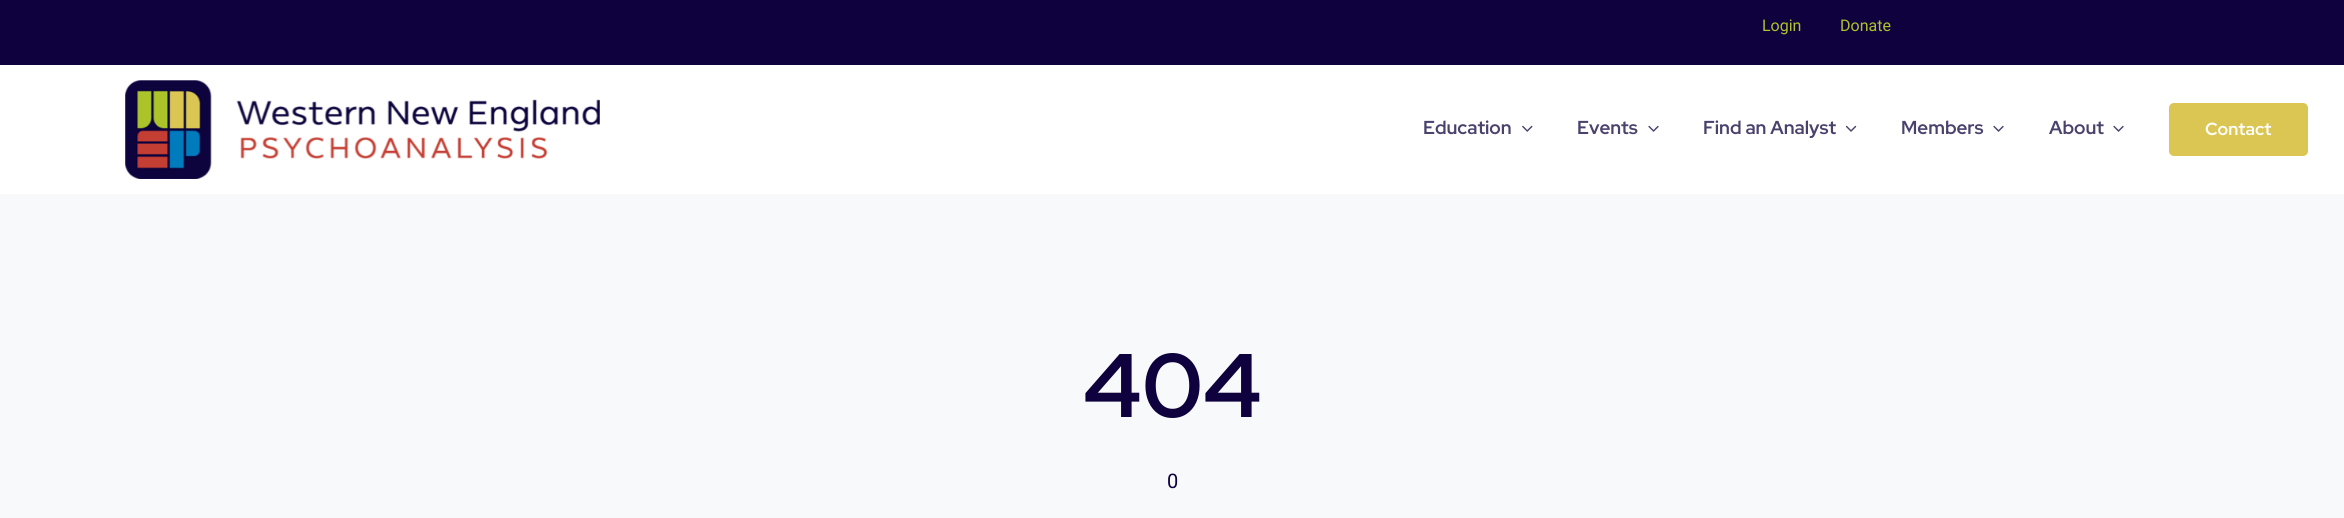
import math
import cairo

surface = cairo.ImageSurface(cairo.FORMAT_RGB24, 2344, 518)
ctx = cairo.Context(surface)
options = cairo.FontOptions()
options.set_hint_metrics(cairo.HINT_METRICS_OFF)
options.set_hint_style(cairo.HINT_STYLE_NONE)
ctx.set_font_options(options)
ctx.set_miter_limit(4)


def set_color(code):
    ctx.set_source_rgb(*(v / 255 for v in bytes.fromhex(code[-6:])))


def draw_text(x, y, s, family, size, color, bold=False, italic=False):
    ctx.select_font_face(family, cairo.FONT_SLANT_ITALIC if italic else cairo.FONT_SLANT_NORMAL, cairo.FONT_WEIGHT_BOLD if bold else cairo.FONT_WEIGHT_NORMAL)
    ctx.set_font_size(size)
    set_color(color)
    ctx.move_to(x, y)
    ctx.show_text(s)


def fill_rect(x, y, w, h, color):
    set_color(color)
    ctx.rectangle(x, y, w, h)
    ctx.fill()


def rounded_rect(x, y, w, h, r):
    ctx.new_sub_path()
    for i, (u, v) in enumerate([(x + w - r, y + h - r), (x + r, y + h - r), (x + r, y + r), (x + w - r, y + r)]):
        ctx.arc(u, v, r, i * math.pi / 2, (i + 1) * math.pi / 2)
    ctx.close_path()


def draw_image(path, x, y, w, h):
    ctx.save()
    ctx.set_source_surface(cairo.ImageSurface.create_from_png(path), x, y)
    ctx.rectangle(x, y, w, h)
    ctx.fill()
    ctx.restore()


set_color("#ffffff")
ctx.paint()
fill_rect(0, 0, 2344, 65, "#0e013d")
draw_text(1762, 31, "Login", "Roboto", 16, "#adc32b")
draw_text(1840, 31, "Donate", "Roboto", 16, "#adc32b")
draw_image("assets/img1.png", 125, 80, 475, 99)
draw_text(1423, 134, "Education", "Red Hat Display", 18.75, "#4a416d", bold=True)
draw_image("assets/img2.png", 1522, 125, 11, 7)
draw_text(1577, 134, "Events", "Red Hat Display", 18.75, "#4a416d", bold=True)
draw_image("assets/img3.png", 1648, 125, 11, 7)
draw_text(1703, 134, "Find an Analyst", "Red Hat Display", 18.75, "#4a416d", bold=True)
draw_image("assets/img4.png", 1845, 125, 12, 7)
draw_text(1901, 134, "Members", "Red Hat Display", 18.75, "#4a416d", bold=True)
draw_image("assets/img3.png", 1993, 125, 11, 7)
draw_text(2049, 134, "About", "Red Hat Display", 18.75, "#4a416d", bold=True)
draw_image("assets/img3.png", 2113, 125, 11, 7)
set_color("#dbc553")
rounded_rect(2169, 103, 139, 53, 5)
ctx.fill()
draw_text(2205, 135, "Contact", "Red Hat Display", 17.5, "#ffffff", bold=True)
fill_rect(0, 194, 2344, 324, "#f8f9fa")
draw_text(1083, 417, "404", "Red Hat Display", 90, "#0e013d", bold=True)
draw_text(1167, 488, "0", "Roboto", 20, "#0e013d")
surface.write_to_png("output.png")
